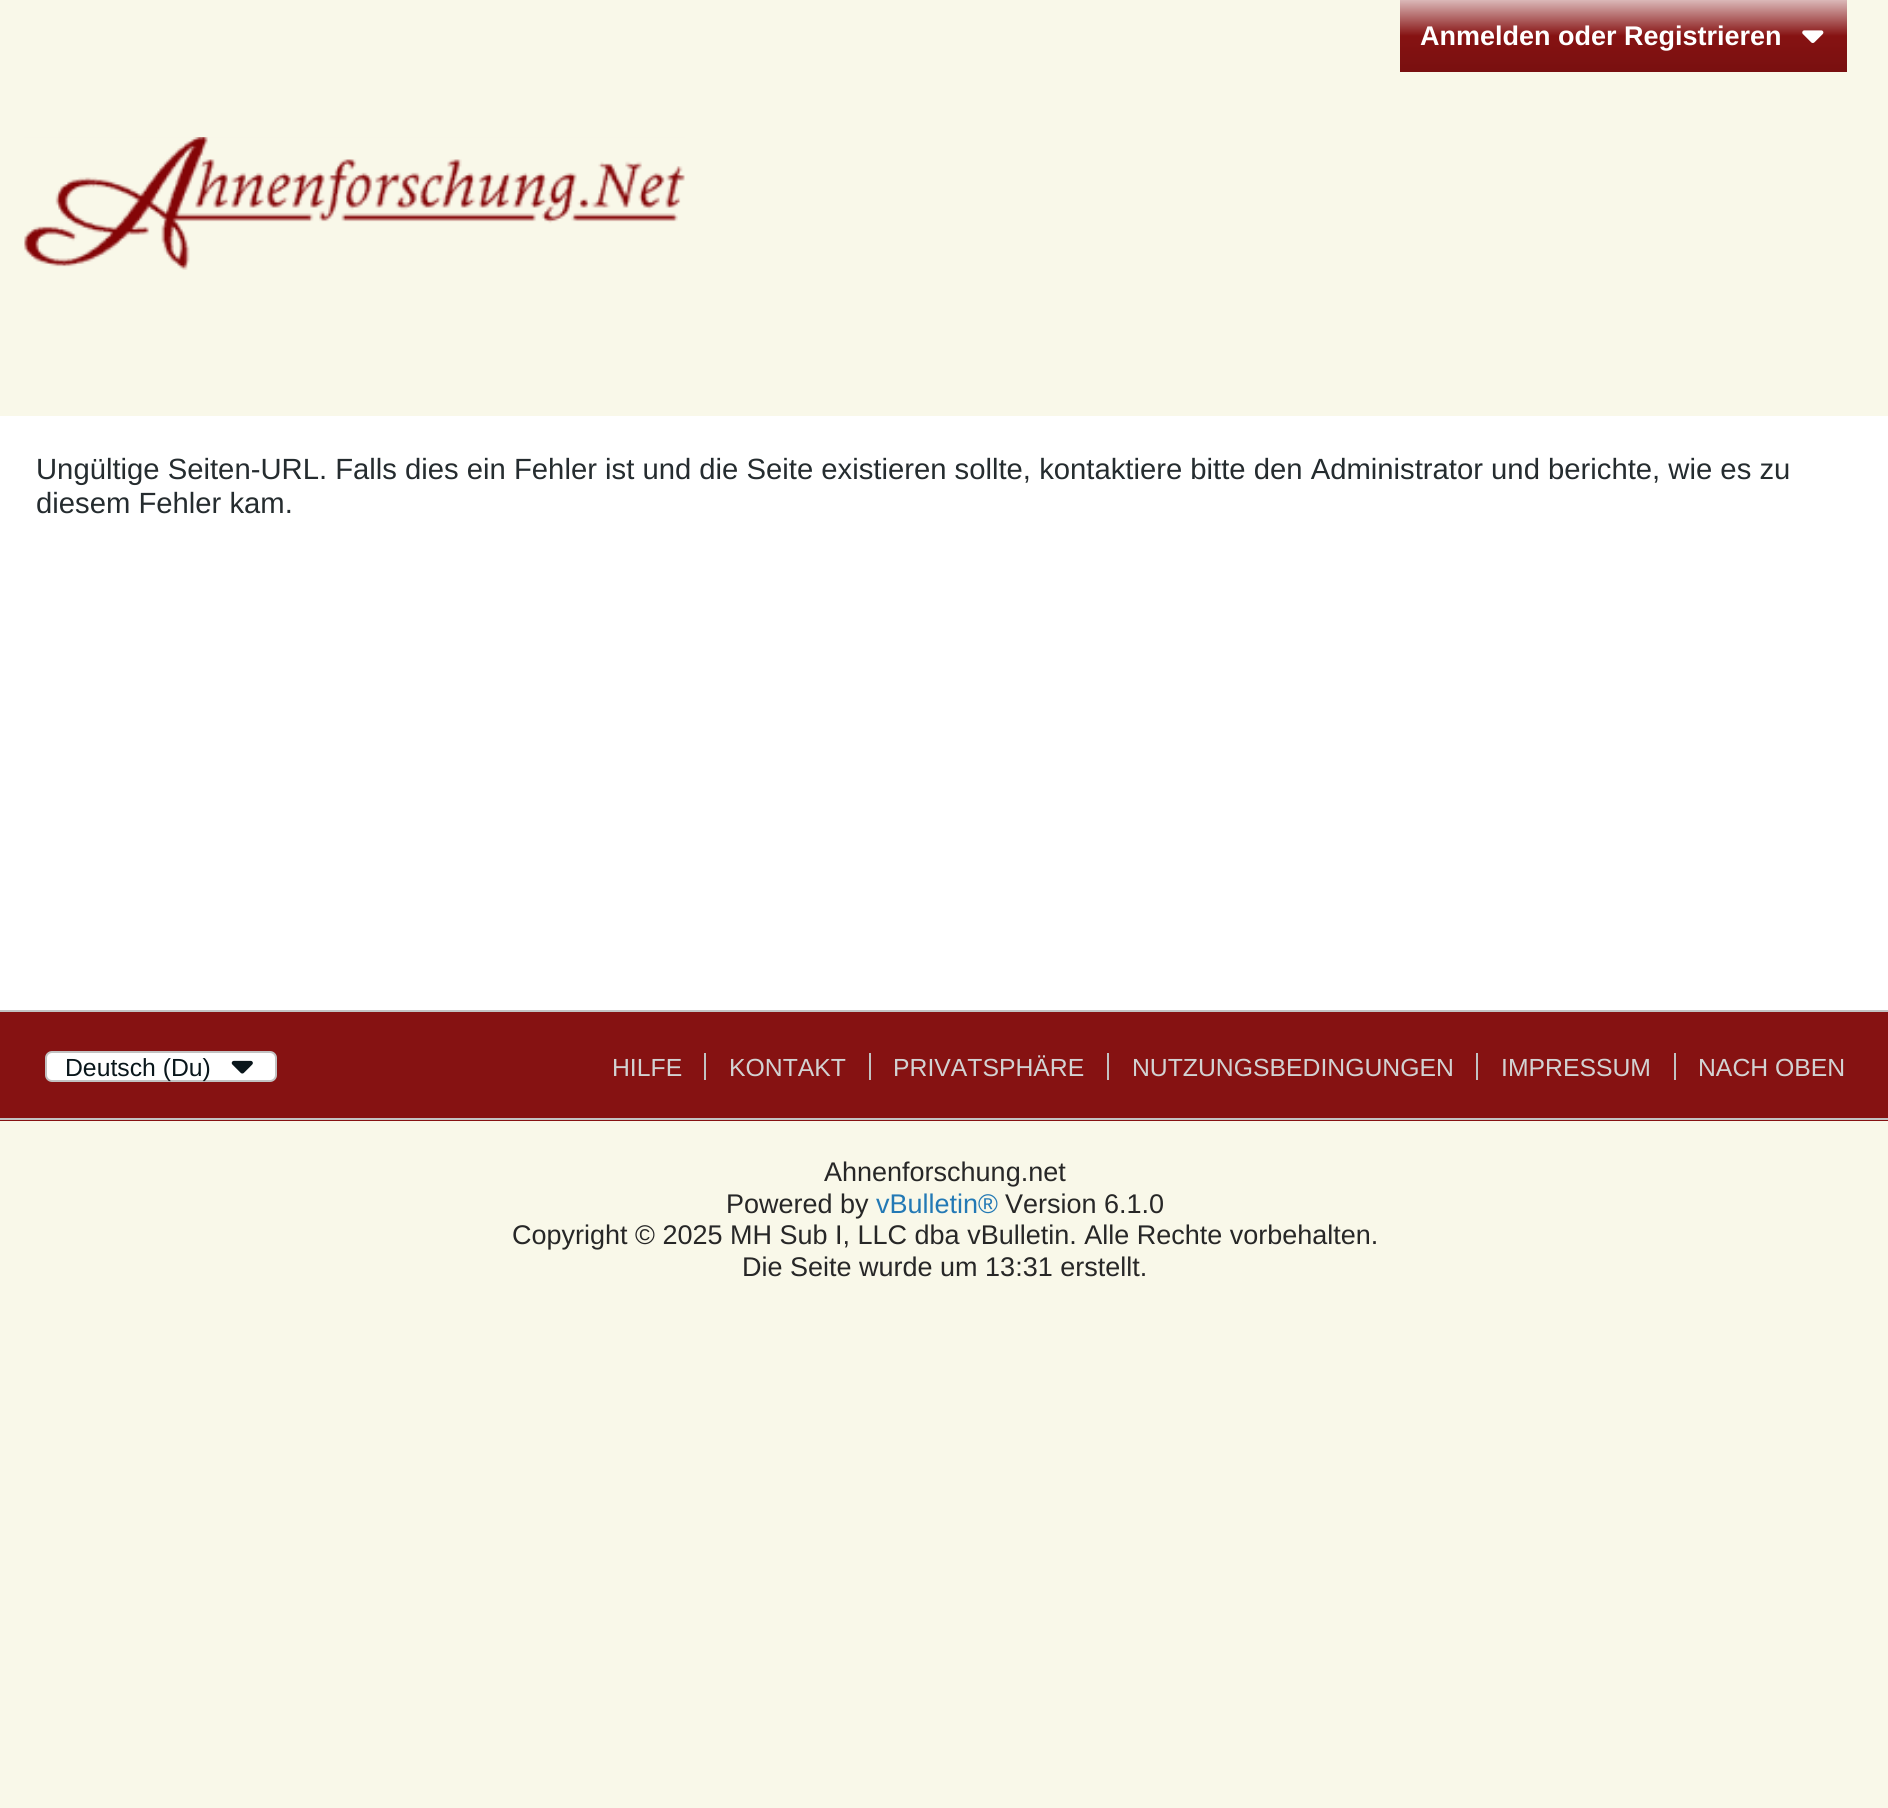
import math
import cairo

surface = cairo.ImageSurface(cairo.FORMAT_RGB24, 1888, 1808)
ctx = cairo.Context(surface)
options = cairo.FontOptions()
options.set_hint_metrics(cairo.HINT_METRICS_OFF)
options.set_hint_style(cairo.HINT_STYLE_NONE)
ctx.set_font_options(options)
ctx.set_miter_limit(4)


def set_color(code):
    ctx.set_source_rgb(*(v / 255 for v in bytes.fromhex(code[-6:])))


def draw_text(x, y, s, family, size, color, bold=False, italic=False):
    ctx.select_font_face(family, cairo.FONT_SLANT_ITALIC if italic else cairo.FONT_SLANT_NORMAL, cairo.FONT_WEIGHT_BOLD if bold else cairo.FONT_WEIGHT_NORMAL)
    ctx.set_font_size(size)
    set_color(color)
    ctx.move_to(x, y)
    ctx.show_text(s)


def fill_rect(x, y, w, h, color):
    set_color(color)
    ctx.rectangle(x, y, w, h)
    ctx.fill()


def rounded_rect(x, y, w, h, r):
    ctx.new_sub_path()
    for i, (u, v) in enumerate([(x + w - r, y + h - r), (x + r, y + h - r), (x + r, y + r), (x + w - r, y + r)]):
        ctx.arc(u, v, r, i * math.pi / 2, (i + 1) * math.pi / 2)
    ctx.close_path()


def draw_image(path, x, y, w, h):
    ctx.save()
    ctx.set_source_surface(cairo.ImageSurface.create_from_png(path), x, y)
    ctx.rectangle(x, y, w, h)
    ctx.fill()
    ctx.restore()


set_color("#f9f8e9")
ctx.paint()
gradient = cairo.LinearGradient(1623, 72, 1623, 0)
gradient.add_color_stop_rgba(0, 0.475, 0.063, 0.063, 1)
gradient.add_color_stop_rgba(0.5, 0.525, 0.071, 0.071, 1)
gradient.add_color_stop_rgba(1, 0.859, 0.722, 0.722, 1)
ctx.set_source(gradient)
ctx.rectangle(1400, 0, 447, 72)
ctx.fill()
draw_text(1420, 45, "Anmelden oder Registrieren", "Liberation Sans", 27, "#ffffff", bold=True)
draw_image("assets/img1.png", 1802, 30, 22, 13)
draw_image("assets/img2.png", 24, 137, 661, 133)
fill_rect(0, 416, 1888, 594, "#ffffff")
draw_text(36, 479, "Ungültige Seiten-URL. Falls dies ein Fehler ist und die Seite existieren sollte, kontaktiere bitte den Administrator und berichte, wie es zu", "Liberation Sans", 29.25, "#252c2f")
draw_text(36, 513, "diesem Fehler kam.", "Liberation Sans", 29.25, "#252c2f")
fill_rect(0, 1012, 1888, 109, "#861212")
fill_rect(0, 1010, 1888, 2, "#c2c2c2")
fill_rect(0, 1118, 1888, 2, "#c2c2c2")
set_color("#ffffff")
rounded_rect(46, 1052, 230, 29, 6)
ctx.fill_preserve()
set_color("#c2c2c2")
ctx.stroke()
draw_text(65, 1076, "Deutsch (Du)", "Liberation Sans", 24.75, "#09161b")
draw_image("assets/img3.png", 231, 1060, 22, 14)
draw_text(612, 1076, "HILFE", "Liberation Sans", 24.75, "#d2d2d2")
fill_rect(704, 1053, 2, 27, "#c2c2c2")
draw_text(729, 1076, "KONTAKT", "Liberation Sans", 24.75, "#d2d2d2")
fill_rect(869, 1053, 2, 27, "#c2c2c2")
draw_text(893, 1076, "PRIVATSPHÄRE", "Liberation Sans", 24.75, "#d2d2d2")
fill_rect(1107, 1053, 2, 27, "#c2c2c2")
draw_text(1132, 1076, "NUTZUNGSBEDINGUNGEN", "Liberation Sans", 24.75, "#d2d2d2")
fill_rect(1476, 1053, 2, 27, "#c2c2c2")
draw_text(1501, 1076, "IMPRESSUM", "Liberation Sans", 24.75, "#d2d2d2")
fill_rect(1674, 1053, 2, 27, "#c2c2c2")
draw_text(1698, 1076, "NACH OBEN", "Liberation Sans", 24.75, "#d2d2d2")
draw_text(824, 1181, "Ahnenforschung.net", "Liberation Sans", 27, "#272727")
draw_text(726, 1213, "Powered by", "Liberation Sans", 27, "#272727")
draw_text(876, 1213, "vBulletin®", "Liberation Sans", 27, "#2379b5")
draw_text(1005, 1213, "Version 6.1.0", "Liberation Sans", 27, "#272727")
draw_text(512, 1244, "Copyright © 2025 MH Sub I, LLC dba vBulletin. Alle Rechte vorbehalten.", "Liberation Sans", 27, "#272727")
draw_text(742, 1276, "Die Seite wurde um 13:31 erstellt.", "Liberation Sans", 27, "#272727")
surface.write_to_png("output.png")
